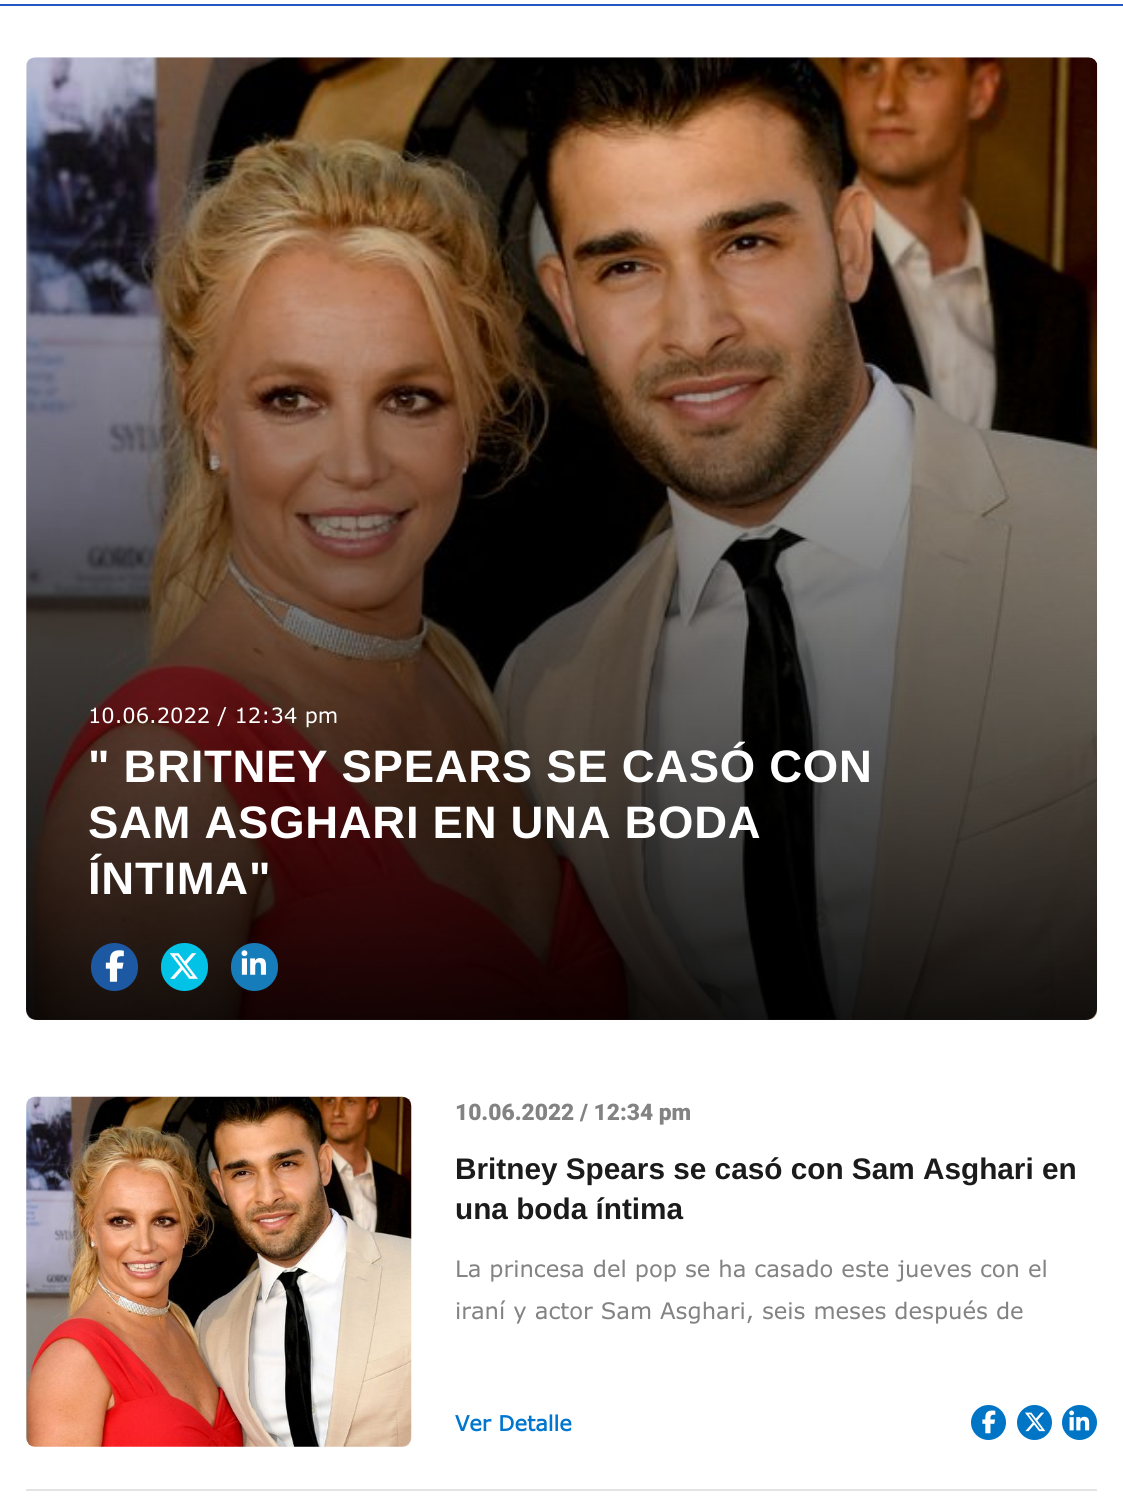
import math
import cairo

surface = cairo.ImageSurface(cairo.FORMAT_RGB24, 1123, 1512)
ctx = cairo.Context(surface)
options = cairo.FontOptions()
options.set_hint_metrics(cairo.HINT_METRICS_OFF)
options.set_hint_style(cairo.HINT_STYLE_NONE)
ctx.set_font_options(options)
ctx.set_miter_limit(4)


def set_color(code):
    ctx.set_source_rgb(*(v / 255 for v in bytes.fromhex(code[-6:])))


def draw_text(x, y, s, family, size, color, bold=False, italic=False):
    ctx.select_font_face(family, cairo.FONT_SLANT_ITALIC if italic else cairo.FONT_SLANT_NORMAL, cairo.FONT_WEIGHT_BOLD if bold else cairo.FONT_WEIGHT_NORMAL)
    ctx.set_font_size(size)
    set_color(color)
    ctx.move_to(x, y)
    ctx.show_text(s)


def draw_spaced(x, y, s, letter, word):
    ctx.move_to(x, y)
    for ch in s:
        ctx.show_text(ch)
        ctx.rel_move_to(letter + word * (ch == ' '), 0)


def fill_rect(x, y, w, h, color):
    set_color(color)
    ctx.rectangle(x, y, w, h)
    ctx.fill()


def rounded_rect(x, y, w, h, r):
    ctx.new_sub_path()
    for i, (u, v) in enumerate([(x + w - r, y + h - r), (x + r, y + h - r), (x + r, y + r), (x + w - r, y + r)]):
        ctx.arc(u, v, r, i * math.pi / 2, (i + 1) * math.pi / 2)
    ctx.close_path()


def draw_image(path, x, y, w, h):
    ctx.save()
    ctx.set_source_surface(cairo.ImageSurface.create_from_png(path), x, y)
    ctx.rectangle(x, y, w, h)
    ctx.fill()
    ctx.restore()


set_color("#ffffff")
ctx.paint()
fill_rect(0, 4, 1123, 2, "#2258c4")
draw_image("assets/img1.png", 26, 57, 1072, 963)
gradient = cairo.LinearGradient(562, 1020, 562, 58)
gradient.add_color_stop_rgba(0, 0, 0, 0, 0.92)
gradient.add_color_stop_rgba(1, 0, 0, 0, 0)
ctx.set_source(gradient)
ctx.new_path()
ctx.move_to(26, 58)
ctx.line_to(1097, 58)
ctx.line_to(1097, 1009)
ctx.curve_to(1097, 1015, 1092, 1020, 1086, 1020)
ctx.line_to(37, 1020)
ctx.curve_to(31, 1020, 26, 1015, 26, 1009)
ctx.close_path()
ctx.fill()
draw_text(88, 723, "10.06.2022 / 12:34 pm", "Verdana", 21, "#ffffff")
ctx.select_font_face("Liberation Sans", cairo.FONT_SLANT_NORMAL, cairo.FONT_WEIGHT_BOLD)
ctx.set_font_size(45.5)
draw_spaced(88, 782, "\" BRITNEY SPEARS SE CASÓ CON", 0.7, 0)
draw_spaced(88, 838, "SAM ASGHARI EN UNA BODA", 0.7, 0)
draw_spaced(88, 894, "ÍNTIMA\"", 0.7, 0)
set_color("#1d59a2")
rounded_rect(93, 945, 43, 44, 21.5)
ctx.fill_preserve()
ctx.set_line_width(4)
ctx.stroke()
draw_image("assets/img2.png", 105, 950, 19, 32)
set_color("#02c2e6")
rounded_rect(163, 945, 43, 44, 21.5)
ctx.fill_preserve()
ctx.stroke()
draw_image("assets/img3.png", 169, 953, 29, 26)
set_color("#177cba")
rounded_rect(233, 945, 43, 44, 21.5)
ctx.fill_preserve()
ctx.stroke()
draw_image("assets/img4.png", 241, 950, 25, 25)
draw_image("assets/img5.png", 26, 1096, 386, 351)
draw_text(455, 1120, "10.06.2022 / 12:34 pm", "Roboto Black", 22.75, "#838383")
draw_text(455, 1179, "Britney Spears se casó con Sam Asghari en", "Liberation Sans", 29.75, "#1b1b1b", bold=True)
draw_text(455, 1219, "una boda íntima", "Liberation Sans", 29.75, "#1b1b1b", bold=True)
draw_text(455, 1277, "La princesa del pop se ha casado este jueves con el", "Verdana", 22.75, "#838383")
draw_text(455, 1319, "iraní y actor Sam Asghari, seis meses después de", "Verdana", 22.75, "#838383")
draw_text(455, 1431, "Ver Detalle", "Verdana", 21, "#0076ce", bold=True)
set_color("#0074c5")
ctx.new_path()
ctx.arc(988.5, 1422.5, 15.5, 0, 2 * math.pi)
ctx.fill_preserve()
ctx.stroke()
draw_image("assets/img6.png", 982, 1410, 14, 24)
ctx.arc(1034.5, 1422.5, 15.5, 0, 2 * math.pi)
ctx.fill_preserve()
ctx.stroke()
draw_image("assets/img7.png", 1025, 1412, 21, 20)
ctx.arc(1079.5, 1422.5, 15.5, 0, 2 * math.pi)
ctx.fill_preserve()
ctx.stroke()
draw_image("assets/img8.png", 1069, 1410, 21, 21)
fill_rect(26, 1489, 1071, 2, "#e3e3e3")
surface.write_to_png("output.png")
